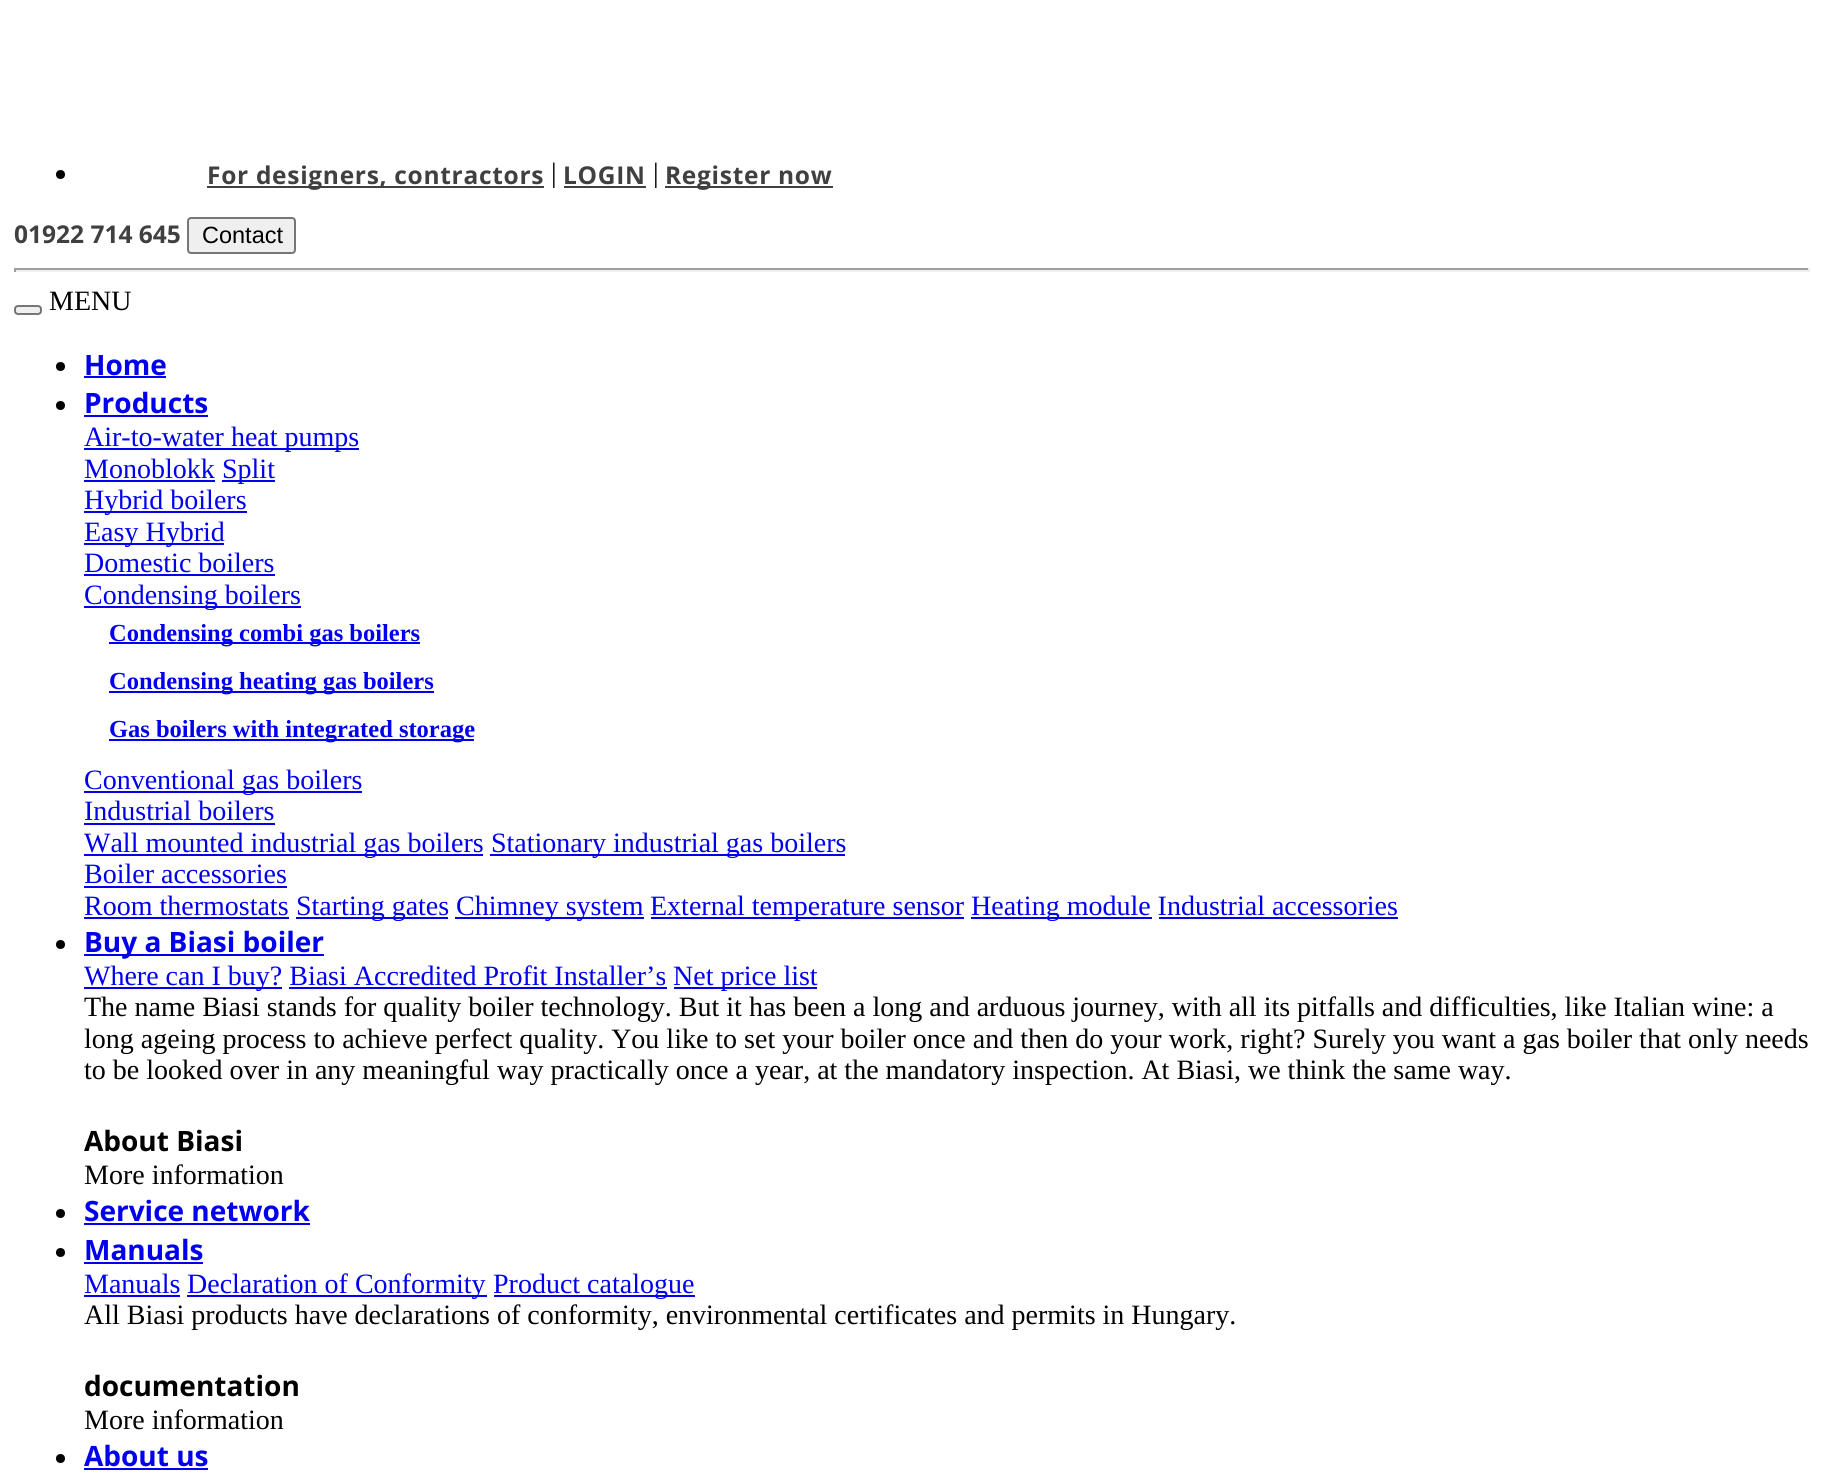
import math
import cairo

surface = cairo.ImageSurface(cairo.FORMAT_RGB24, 1822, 1475)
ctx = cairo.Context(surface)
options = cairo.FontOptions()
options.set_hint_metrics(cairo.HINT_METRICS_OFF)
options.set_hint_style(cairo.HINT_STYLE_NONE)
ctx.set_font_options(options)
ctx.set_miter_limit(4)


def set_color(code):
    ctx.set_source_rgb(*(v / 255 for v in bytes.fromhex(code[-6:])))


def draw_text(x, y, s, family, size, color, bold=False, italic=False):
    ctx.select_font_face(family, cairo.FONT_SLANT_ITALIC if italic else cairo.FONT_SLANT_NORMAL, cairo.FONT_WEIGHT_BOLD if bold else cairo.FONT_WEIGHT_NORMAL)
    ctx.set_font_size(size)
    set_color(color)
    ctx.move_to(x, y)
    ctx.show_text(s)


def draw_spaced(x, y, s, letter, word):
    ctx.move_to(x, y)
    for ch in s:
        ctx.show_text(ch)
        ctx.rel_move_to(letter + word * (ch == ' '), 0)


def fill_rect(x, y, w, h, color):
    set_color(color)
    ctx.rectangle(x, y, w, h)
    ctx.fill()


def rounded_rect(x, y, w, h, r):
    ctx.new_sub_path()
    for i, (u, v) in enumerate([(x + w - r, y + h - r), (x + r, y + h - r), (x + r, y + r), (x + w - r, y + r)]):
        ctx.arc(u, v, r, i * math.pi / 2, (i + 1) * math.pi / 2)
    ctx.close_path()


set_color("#ffffff")
ctx.paint()
set_color("#000000")
ctx.arc(60.5, 174.5, 4.5, 0, 2 * math.pi)
ctx.fill()
fill_rect(207, 186, 337, 2, "#404040")
ctx.select_font_face("Open Sans", cairo.FONT_SLANT_NORMAL, cairo.FONT_WEIGHT_BOLD)
ctx.set_font_size(24.5)
draw_spaced(207, 184, "For designers, contractors", 0.7, 0)
draw_text(551, 182, "|", "Liberation Serif", 28, "#000000")
ctx.select_font_face("Open Sans", cairo.FONT_SLANT_NORMAL, cairo.FONT_WEIGHT_BOLD)
ctx.set_font_size(24.5)
set_color("#404040")
draw_spaced(563, 184, "LOGIN", 0.7, 0)
fill_rect(564, 186, 82, 2, "#404040")
draw_text(653, 182, "|", "Liberation Serif", 28, "#000000")
fill_rect(665, 186, 168, 2, "#404040")
ctx.select_font_face("Open Sans", cairo.FONT_SLANT_NORMAL, cairo.FONT_WEIGHT_BOLD)
ctx.set_font_size(24.5)
draw_spaced(665, 184, "Register now", 0.7, 0)
draw_text(14, 243, "01922 714 645", "Open Sans", 24.5, "#404040", bold=True)
set_color("#efefef")
rounded_rect(188, 218, 107, 35, 3)
ctx.fill_preserve()
set_color("#767676")
ctx.stroke()
draw_text(202, 243, "Contact", "Liberation Sans", 23.5, "#000000")
fill_rect(14, 268, 1796, 2, "#9f9f9f")
fill_rect(1808, 268, 2, 4, "#eeeeee")
fill_rect(14, 270, 1796, 2, "#eeeeee")
fill_rect(14, 268, 2, 4, "#9f9f9f")
set_color("#efefef")
rounded_rect(15, 306, 26, 8, 3)
ctx.fill_preserve()
set_color("#767676")
ctx.stroke()
draw_text(49, 310, "MENU", "Liberation Serif", 28, "#000000")
ctx.new_path()
ctx.arc(60.5, 366.5, 4.5, 0, 2 * math.pi)
ctx.fill()
draw_text(84, 375, "Home", "Open Sans", 28, "#0000ee", bold=True)
fill_rect(84, 376, 82, 2, "#0000ee")
set_color("#000000")
ctx.new_path()
ctx.arc(60.5, 405.5, 4.5, 0, 2 * math.pi)
ctx.fill()
draw_text(84, 413, "Products", "Open Sans", 28, "#0000ee", bold=True)
fill_rect(84, 415, 124, 2, "#0000ee")
fill_rect(84, 448, 275, 2, "#0000ee")
draw_text(84, 446, "Air-to-water heat pumps", "Liberation Serif", 28, "#0000ee")
draw_text(84, 478, "Monoblokk", "Liberation Serif", 28, "#0000ee")
fill_rect(84, 480, 131, 2, "#0000ee")
fill_rect(222, 480, 53, 2, "#0000ee")
draw_text(222, 478, "Split", "Liberation Serif", 28, "#0000ee")
fill_rect(84, 511, 163, 2, "#0000ee")
draw_text(84, 509, "Hybrid boilers", "Liberation Serif", 28, "#0000ee")
fill_rect(84, 543, 140, 2, "#0000ee")
draw_text(84, 541, "Easy Hybrid", "Liberation Serif", 28, "#0000ee")
draw_text(84, 572, "Domestic boilers", "Liberation Serif", 28, "#0000ee")
fill_rect(84, 574, 191, 2, "#0000ee")
fill_rect(84, 606, 217, 2, "#0000ee")
draw_text(84, 604, "Condensing boilers", "Liberation Serif", 28, "#0000ee")
fill_rect(109, 642, 311, 2, "#0000ee")
draw_text(109, 641, "Condensing combi gas boilers", "Liberation Serif", 24.5, "#0000ee", bold=True)
fill_rect(109, 691, 325, 2, "#0000ee")
draw_text(109, 689, "Condensing heating gas boilers", "Liberation Serif", 24.5, "#0000ee", bold=True)
fill_rect(109, 739, 365, 2, "#0000ee")
draw_text(109, 737, "Gas boilers with integrated storage", "Liberation Serif", 24.5, "#0000ee", bold=True)
fill_rect(84, 791, 278, 2, "#0000ee")
draw_text(84, 789, "Conventional gas boilers", "Liberation Serif", 28, "#0000ee")
draw_text(84, 820, "Industrial boilers", "Liberation Serif", 28, "#0000ee")
fill_rect(84, 823, 191, 2, "#0000ee")
fill_rect(84, 854, 399, 2, "#0000ee")
draw_text(84, 852, "Wall mounted industrial gas boilers", "Liberation Serif", 28, "#0000ee")
fill_rect(490, 854, 355, 2, "#0000ee")
draw_text(491, 852, "Stationary industrial gas boilers", "Liberation Serif", 28, "#0000ee")
draw_text(84, 883, "Boiler accessories", "Liberation Serif", 28, "#0000ee")
fill_rect(84, 886, 203, 2, "#0000ee")
draw_text(84, 915, "Room thermostats", "Liberation Serif", 28, "#0000ee")
fill_rect(84, 917, 205, 2, "#0000ee")
fill_rect(296, 917, 152, 2, "#0000ee")
draw_text(296, 915, "Starting gates", "Liberation Serif", 28, "#0000ee")
fill_rect(455, 917, 189, 2, "#0000ee")
draw_text(456, 915, "Chimney system", "Liberation Serif", 28, "#0000ee")
fill_rect(651, 917, 313, 2, "#0000ee")
draw_text(650, 915, "External temperature sensor", "Liberation Serif", 28, "#0000ee")
fill_rect(971, 917, 181, 2, "#0000ee")
draw_text(971, 915, "Heating module Industrial accessories", "Liberation Serif", 28, "#0000ee")
fill_rect(1159, 917, 239, 2, "#0000ee")
set_color("#000000")
ctx.new_path()
ctx.arc(60.5, 944.5, 4.5, 0, 2 * math.pi)
ctx.fill()
fill_rect(84, 954, 240, 2, "#0000ee")
draw_text(84, 952, "Buy a Biasi boiler", "Open Sans", 28, "#0000ee", bold=True)
fill_rect(84, 987, 198, 2, "#0000ee")
draw_text(84, 985, "Where can I buy? Biasi Accredited Profit Installer’s", "Liberation Serif", 28, "#0000ee")
fill_rect(674, 987, 143, 2, "#0000ee")
draw_text(673, 985, "Net price list", "Liberation Serif", 28, "#0000ee")
fill_rect(289, 987, 378, 2, "#0000ee")
draw_text(84, 1016, "The name Biasi stands for quality boiler technology. But it has been a long and arduous journey, with all its pitfalls and difficulties, like Italian wine: a", "Liberation Serif", 28, "#000000")
draw_text(84, 1048, "long ageing process to achieve perfect quality. You like to set your boiler once and then do your work, right? Surely you want a gas boiler that only needs", "Liberation Serif", 28, "#000000")
draw_text(84, 1079, "to be looked over in any meaningful way practically once a year, at the mandatory inspection. At Biasi, we think the same way.", "Liberation Serif", 28, "#000000")
draw_text(84, 1151, "About Biasi", "Open Sans", 28, "#000000", bold=True)
draw_text(84, 1184, "More information", "Liberation Serif", 28, "#000000")
ctx.new_path()
ctx.arc(60.5, 1213.5, 4.5, 0, 2 * math.pi)
ctx.fill()
draw_text(84, 1221, "Service network", "Open Sans", 28, "#0000ee", bold=True)
fill_rect(84, 1223, 226, 2, "#0000ee")
set_color("#000000")
ctx.new_path()
ctx.arc(60.5, 1252.5, 4.5, 0, 2 * math.pi)
ctx.fill()
draw_text(84, 1260, "Manuals", "Open Sans", 28, "#0000ee", bold=True)
fill_rect(84, 1262, 119, 2, "#0000ee")
draw_text(84, 1293, "Manuals", "Liberation Serif", 28, "#0000ee")
fill_rect(84, 1295, 96, 2, "#0000ee")
fill_rect(187, 1295, 300, 2, "#0000ee")
draw_text(187, 1293, "Declaration of Conformity", "Liberation Serif", 28, "#0000ee")
fill_rect(494, 1295, 201, 2, "#0000ee")
draw_text(493, 1293, "Product catalogue", "Liberation Serif", 28, "#0000ee")
draw_text(84, 1324, "All Biasi products have declarations of conformity, environmental certificates and permits in Hungary.", "Liberation Serif", 28, "#000000")
draw_text(84, 1396, "documentation", "Open Sans", 28, "#000000", bold=True)
draw_text(84, 1429, "More information", "Liberation Serif", 28, "#000000")
ctx.new_path()
ctx.arc(60.5, 1458.5, 4.5, 0, 2 * math.pi)
ctx.fill()
draw_text(84, 1466, "About us", "Open Sans", 28, "#0000ee", bold=True)
fill_rect(84, 1468, 124, 2, "#0000ee")
surface.write_to_png("output.png")
